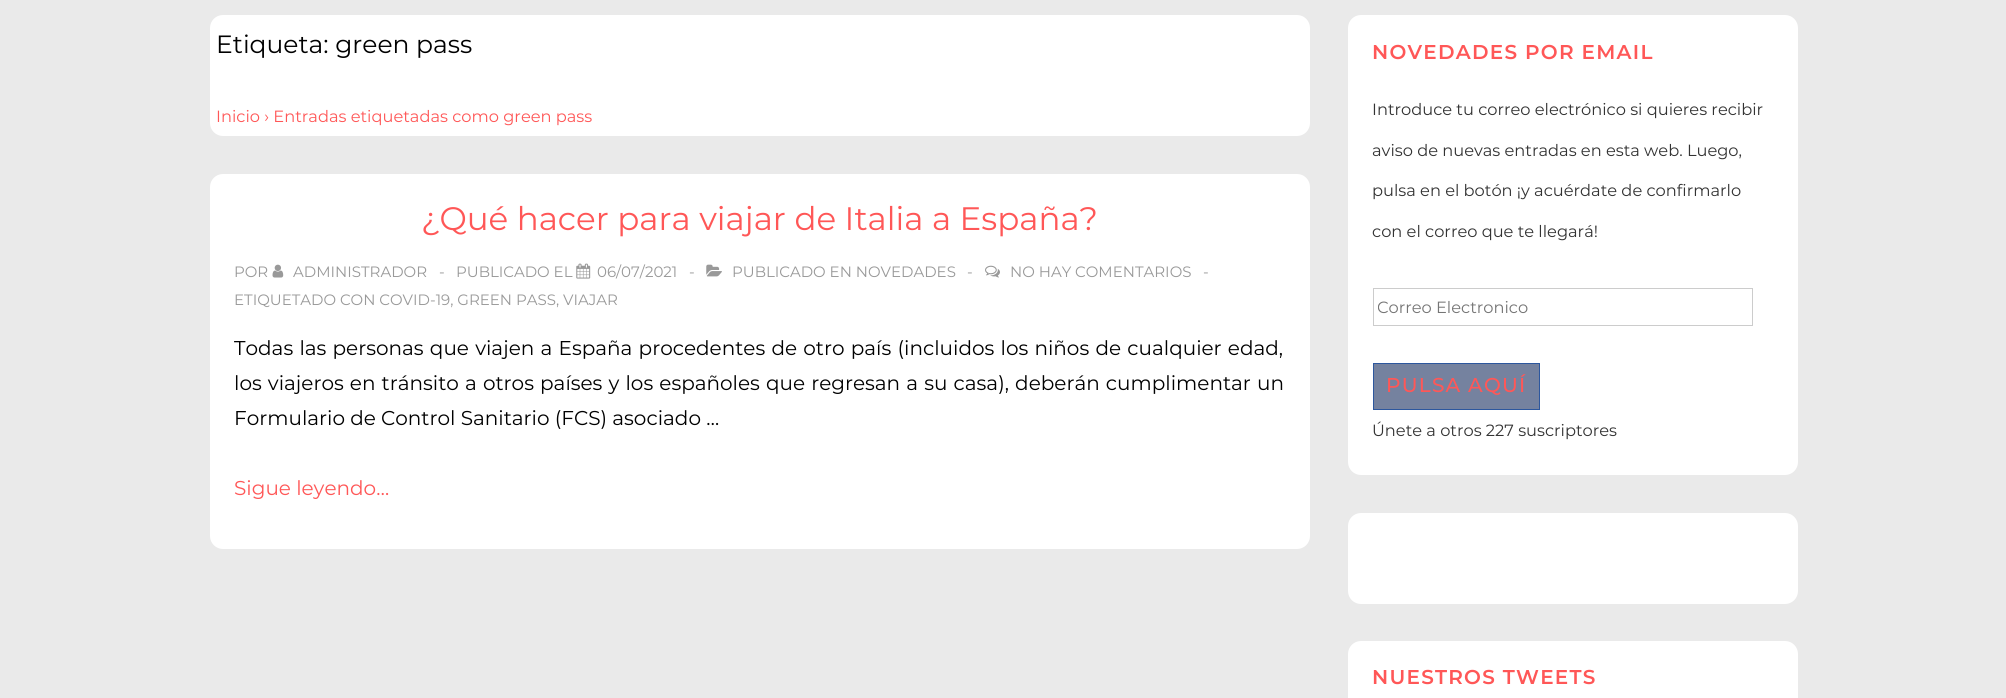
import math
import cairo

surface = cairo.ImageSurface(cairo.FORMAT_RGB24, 2006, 698)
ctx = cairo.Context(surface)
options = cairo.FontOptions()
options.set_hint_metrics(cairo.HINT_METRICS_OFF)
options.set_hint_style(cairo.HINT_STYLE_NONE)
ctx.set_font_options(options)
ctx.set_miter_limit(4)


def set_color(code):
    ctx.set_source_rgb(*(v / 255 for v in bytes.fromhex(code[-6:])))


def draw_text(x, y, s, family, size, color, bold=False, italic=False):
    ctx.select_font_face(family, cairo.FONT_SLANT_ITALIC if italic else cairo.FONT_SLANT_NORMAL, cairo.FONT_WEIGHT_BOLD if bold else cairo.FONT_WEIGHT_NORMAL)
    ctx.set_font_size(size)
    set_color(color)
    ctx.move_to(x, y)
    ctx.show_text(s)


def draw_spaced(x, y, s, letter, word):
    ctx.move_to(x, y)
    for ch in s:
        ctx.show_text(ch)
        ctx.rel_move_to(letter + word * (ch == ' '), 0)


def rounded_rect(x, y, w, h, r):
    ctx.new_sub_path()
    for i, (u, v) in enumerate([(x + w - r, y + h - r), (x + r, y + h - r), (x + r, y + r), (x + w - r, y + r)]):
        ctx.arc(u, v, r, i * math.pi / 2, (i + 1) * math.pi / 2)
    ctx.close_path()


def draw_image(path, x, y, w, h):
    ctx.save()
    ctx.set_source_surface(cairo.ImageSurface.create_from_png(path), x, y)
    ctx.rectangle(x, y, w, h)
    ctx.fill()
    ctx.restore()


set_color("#eaeaea")
ctx.paint()
set_color("#ffffff")
rounded_rect(210, 15, 1100, 121, 13)
ctx.fill()
draw_text(216, 53, "Etiqueta: green pass", "Montserrat", 25, "#000000")
draw_text(216, 122, "Inicio › Entradas etiquetadas como green pass", "Montserrat", 16.25, "#ff5757")
set_color("#ffffff")
rounded_rect(210, 174, 1100, 375, 13)
ctx.fill()
draw_text(421, 230, "¿Qué hacer para viajar de Italia a España?", "Montserrat", 32.5, "#ff5757")
draw_text(234, 277, "POR", "Montserrat", 15, "#999999")
draw_image("assets/img1.png", 272, 264, 12, 14)
draw_text(293, 277, "ADMINISTRADOR", "Montserrat", 15, "#999999")
draw_text(439, 277, "-", "Montserrat", 15, "#999999")
draw_text(456, 277, "PUBLICADO EL", "Montserrat", 15, "#999999")
draw_image("assets/img2.png", 576, 263, 15, 16)
draw_text(597, 277, "06/07/2021", "Montserrat", 15, "#999999")
draw_text(689, 277, "-", "Montserrat", 15, "#999999")
draw_image("assets/img3.png", 706, 264, 16, 13)
draw_text(732, 277, "PUBLICADO EN NOVEDADES", "Montserrat", 15, "#999999")
draw_text(967, 277, "-", "Montserrat", 15, "#999999")
draw_image("assets/img4.png", 985, 265, 15, 13)
draw_text(1010, 277, "NO HAY COMENTARIOS", "Montserrat", 15, "#999999")
draw_text(1203, 277, "-", "Montserrat", 15, "#999999")
draw_text(234, 305, "ETIQUETADO CON COVID-19, GREEN PASS, VIAJAR", "Montserrat", 15, "#999999")
ctx.set_font_size(20)
set_color("#000000")
draw_spaced(234, 355, "Todas las personas que viajen a España procedentes de otro país (incluidos los niños de cualquier edad,", 0, 1)
draw_spaced(234, 390, "los viajeros en tránsito a otros países y los españoles que regresan a su casa), deberán cumplimentar un", 0, 0.9)
draw_text(234, 425, "Formulario de Control Sanitario (FCS) asociado …", "Montserrat", 20, "#000000")
draw_text(234, 495, "Sigue leyendo…", "Montserrat", 20, "#ff5757")
set_color("#ffffff")
rounded_rect(1348, 15, 450, 460, 13)
ctx.fill()
ctx.select_font_face("Montserrat SemiBold")
set_color("#ff5757")
draw_spaced(1372, 59, "NOVEDADES POR EMAIL", 1.25, 0)
draw_text(1372, 115, "Introduce tu correo electrónico si quieres recibir", "Montserrat", 16.25, "#333333")
draw_text(1372, 156, "aviso de nuevas entradas en esta web. Luego,", "Montserrat", 16.25, "#333333")
draw_text(1372, 196, "pulsa en el botón ¡y acuérdate de confirmarlo", "Montserrat", 16.25, "#333333")
draw_text(1372, 237, "con el correo que te llegará!", "Montserrat", 16.25, "#333333")
ctx.rectangle(1373.5, 288.5, 379, 37)
set_color("#cccccc")
ctx.set_line_width(1)
ctx.stroke()
ctx.save()
ctx.rectangle(1378, 296, 370, 20)
ctx.clip()
draw_text(1377, 313, "Correo Electronico", "Montserrat", 16.25, "#757575")
ctx.restore()
set_color("#75829f")
ctx.rectangle(1373.5, 363.5, 166, 46)
ctx.fill_preserve()
set_color("#2d579e")
ctx.stroke()
ctx.select_font_face("Montserrat Medium")
ctx.set_font_size(20)
set_color("#ff5757")
draw_spaced(1386, 392, "PULSA AQUÍ", 1.25, 0)
draw_text(1372, 436, "Únete a otros 227 suscriptores", "Montserrat", 16.25, "#333333")
set_color("#ffffff")
rounded_rect(1348, 513, 450, 91, 13)
ctx.fill()
rounded_rect(1348, 641, 450, 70, 13)
ctx.fill()
ctx.select_font_face("Montserrat SemiBold")
ctx.set_font_size(20)
set_color("#ff5757")
draw_spaced(1372, 684, "NUESTROS TWEETS", 1.25, 0)
surface.write_to_png("output.png")
